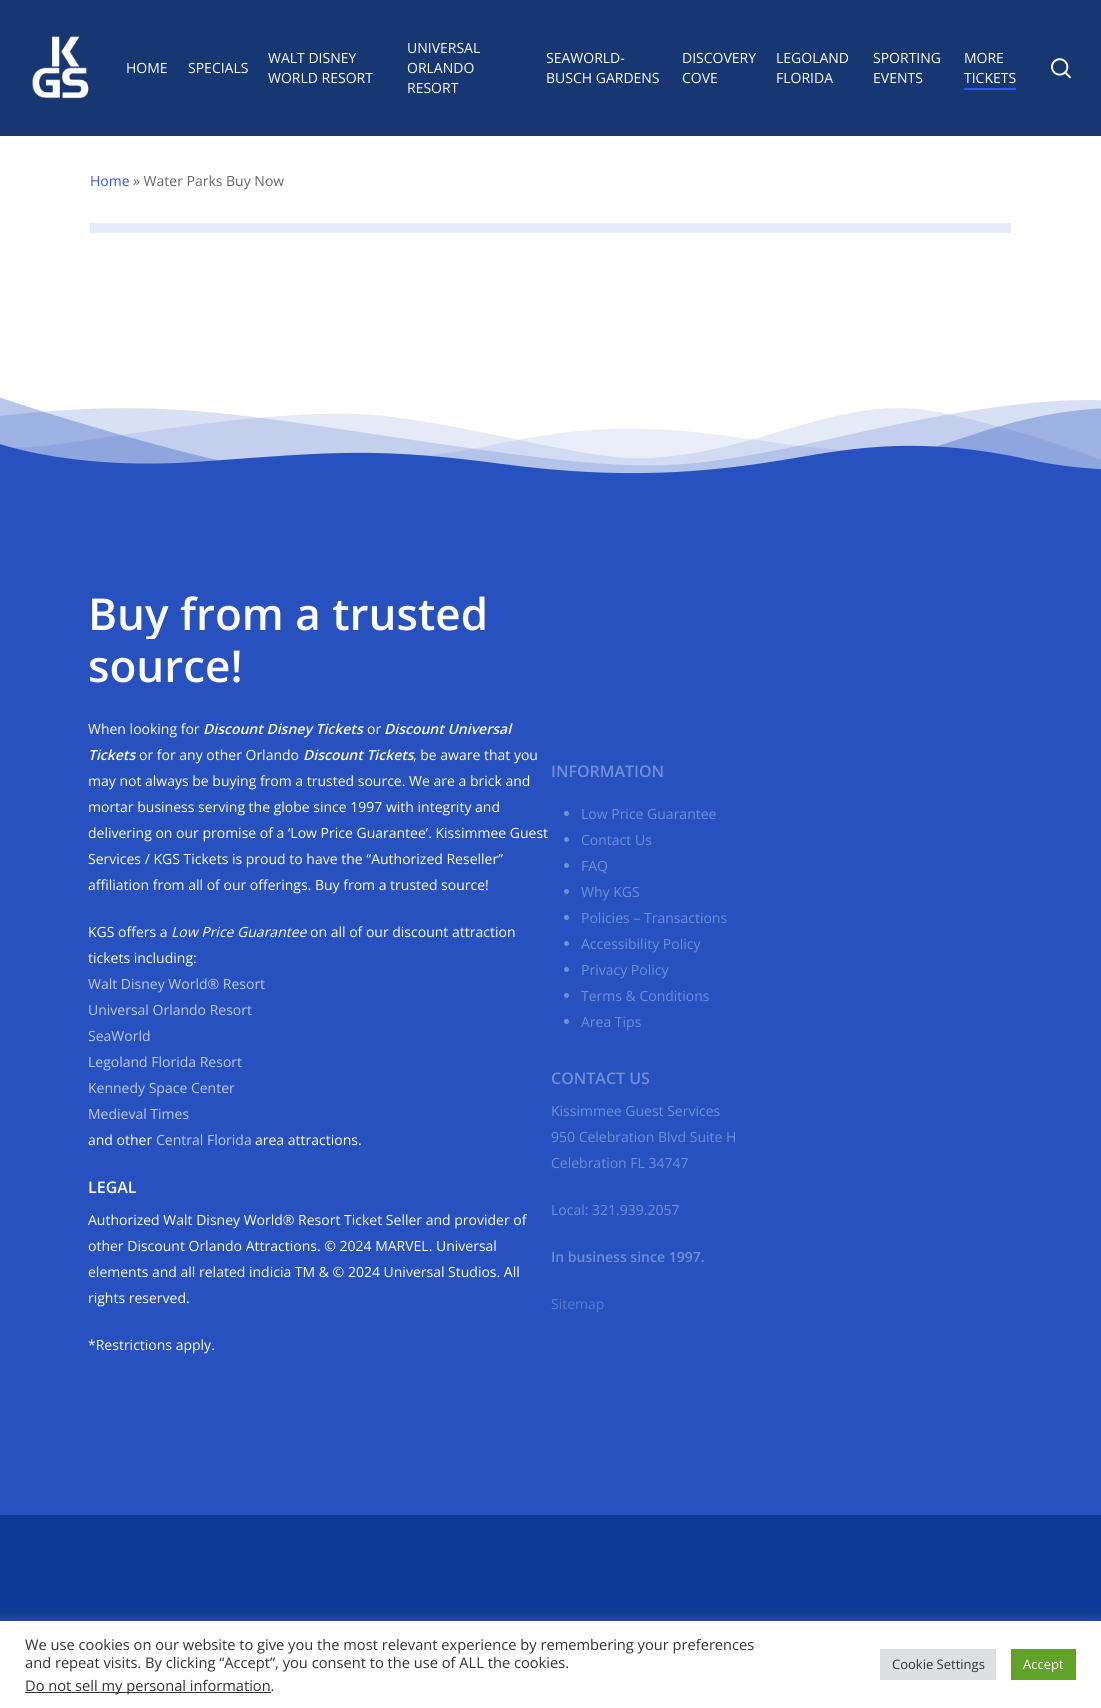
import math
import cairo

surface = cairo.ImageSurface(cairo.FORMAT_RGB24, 1101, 1708)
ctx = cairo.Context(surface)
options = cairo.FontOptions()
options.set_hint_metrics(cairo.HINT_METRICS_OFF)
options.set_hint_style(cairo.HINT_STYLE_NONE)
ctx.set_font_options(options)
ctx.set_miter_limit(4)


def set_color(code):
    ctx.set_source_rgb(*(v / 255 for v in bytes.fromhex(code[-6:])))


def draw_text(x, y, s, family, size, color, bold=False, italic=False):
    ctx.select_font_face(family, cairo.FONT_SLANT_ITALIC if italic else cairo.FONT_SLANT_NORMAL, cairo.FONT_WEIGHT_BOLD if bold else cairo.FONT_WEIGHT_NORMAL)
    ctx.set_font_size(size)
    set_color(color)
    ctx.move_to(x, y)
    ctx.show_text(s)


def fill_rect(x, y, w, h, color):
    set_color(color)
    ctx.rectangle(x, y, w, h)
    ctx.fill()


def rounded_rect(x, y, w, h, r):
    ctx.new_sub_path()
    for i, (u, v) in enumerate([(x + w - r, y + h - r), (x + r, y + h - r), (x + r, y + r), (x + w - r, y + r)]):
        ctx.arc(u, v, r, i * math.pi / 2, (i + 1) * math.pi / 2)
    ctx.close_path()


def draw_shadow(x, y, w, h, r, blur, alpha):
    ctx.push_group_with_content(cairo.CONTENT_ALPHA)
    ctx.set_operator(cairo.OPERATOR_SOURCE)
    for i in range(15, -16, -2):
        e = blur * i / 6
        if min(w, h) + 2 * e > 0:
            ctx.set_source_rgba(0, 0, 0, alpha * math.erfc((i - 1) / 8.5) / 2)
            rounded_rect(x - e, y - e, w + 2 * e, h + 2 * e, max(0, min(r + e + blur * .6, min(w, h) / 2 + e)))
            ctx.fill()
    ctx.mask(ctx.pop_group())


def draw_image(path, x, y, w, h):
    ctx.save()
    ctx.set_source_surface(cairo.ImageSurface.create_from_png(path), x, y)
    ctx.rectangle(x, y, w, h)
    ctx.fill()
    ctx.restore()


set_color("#ffffff")
ctx.paint()
fill_rect(0, 0, 1101, 136, "#173773")
draw_image("assets/img1.png", 32, 36, 57, 63)
draw_text(126, 73, "HOME", "Open Sans", 14, "#ffffff")
draw_text(188, 73, "SPECIALS", "Open Sans", 14, "#ffffff")
draw_text(268, 63, "WALT DISNEY", "Open Sans", 14, "#ffffff")
draw_text(268, 83, "WORLD RESORT", "Open Sans", 14, "#ffffff")
draw_text(407, 53, "UNIVERSAL", "Open Sans", 14, "#ffffff")
draw_text(407, 73, "ORLANDO", "Open Sans", 14, "#ffffff")
draw_text(407, 93, "RESORT", "Open Sans", 14, "#ffffff")
draw_text(546, 63, "SEAWORLD-", "Open Sans", 14, "#ffffff")
draw_text(546, 83, "BUSCH GARDENS", "Open Sans", 14, "#ffffff")
draw_text(682, 63, "DISCOVERY", "Open Sans", 14, "#ffffff")
draw_text(682, 83, "COVE", "Open Sans", 14, "#ffffff")
draw_text(776, 63, "LEGOLAND", "Open Sans", 14, "#ffffff")
draw_text(776, 83, "FLORIDA", "Open Sans", 14, "#ffffff")
draw_text(873, 63, "SPORTING", "Open Sans", 14, "#ffffff")
draw_text(873, 83, "EVENTS", "Open Sans", 14, "#ffffff")
draw_text(964, 63, "MORE", "Open Sans", 14, "#ffffff")
draw_text(964, 83, "TICKETS", "Open Sans", 14, "#ffffff")
fill_rect(964, 88, 52, 2, "#3452ff")
draw_image("assets/img2.png", 1051, 58, 20, 21)
draw_text(90, 186, "Home", "Open Sans", 14, "#3452ff")
draw_text(133, 186, "» Water Parks Buy Now", "Open Sans", 14, "#676767")
fill_rect(90, 223, 921, 10, "#e4eaf7")
draw_image("assets/img3.png", 0, 397, 1101, 80)
fill_rect(0, 477, 1101, 1038, "#2651bf")
ctx.save()
ctx.rectangle(88, 587, 81, 52)
ctx.clip()
draw_text(88, 630, "Buy", "Open Sans SemiBold", 44, "#ffffff")
ctx.restore()
draw_text(180, 630, "from a trusted", "Open Sans SemiBold", 44, "#ffffff")
draw_text(88, 682, "source!", "Open Sans SemiBold", 44, "#ffffff")
draw_text(88, 734, "When looking for", "Open Sans", 14, "#ffffff")
draw_text(203, 734, "Discount Disney Tickets", "Open Sans SemiBold", 14, "#ffffff", italic=True)
draw_text(367, 734, "or", "Open Sans", 14, "#ffffff")
draw_text(384, 734, "Discount Universal", "Open Sans SemiBold", 14, "#ffffff", italic=True)
draw_text(88, 760, "Tickets", "Open Sans SemiBold", 14, "#ffffff", italic=True)
draw_text(139, 760, "or for any other Orlando", "Open Sans", 14, "#ffffff")
draw_text(303, 760, "Discount Tickets", "Open Sans SemiBold", 14, "#ffffff", italic=True)
draw_text(413, 760, ", be aware that you", "Open Sans", 14, "#ffffff")
draw_text(88, 786, "may not always be buying from a trusted source. We are a brick and", "Open Sans", 14, "#ffffff")
draw_text(88, 812, "mortar business serving the globe since 1997 with integrity and", "Open Sans", 14, "#ffffff")
draw_text(88, 838, "delivering on our promise of a ‘Low Price Guarantee’. Kissimmee Guest", "Open Sans", 14, "#ffffff")
draw_text(88, 864, "Services / KGS Tickets is proud to have the “Authorized Reseller”", "Open Sans", 14, "#ffffff")
draw_text(88, 890, "affiliation from all of our offerings. Buy from a trusted source!", "Open Sans", 14, "#ffffff")
draw_text(88, 937, "KGS offers a", "Open Sans", 14, "#ffffff")
draw_text(171, 937, "Low Price Guarantee", "Open Sans", 14, "#ffffff", italic=True)
draw_text(310, 937, "on all of our discount attraction", "Open Sans", 14, "#ffffff")
draw_text(88, 963, "tickets including:", "Open Sans", 14, "#ffffff")
draw_text(88, 989, "Walt Disney World® Resort", "Open Sans", 14, "#becbec")
draw_text(88, 1015, "Universal Orlando Resort", "Open Sans", 14, "#becbec")
draw_text(88, 1041, "SeaWorld", "Open Sans", 14, "#becbec")
draw_text(88, 1067, "Legoland Florida Resort", "Open Sans", 14, "#becbec")
draw_text(88, 1093, "Kennedy Space Center", "Open Sans", 14, "#becbec")
draw_text(88, 1119, "Medieval Times", "Open Sans", 14, "#becbec")
draw_text(88, 1145, "and other", "Open Sans", 14, "#ffffff")
draw_text(156, 1145, "Central Florida", "Open Sans", 14, "#becbec")
draw_text(255, 1145, "area attractions.", "Open Sans", 14, "#ffffff")
draw_text(88, 1193, "LEGAL", "Open Sans SemiBold", 16, "#ffffff")
draw_text(88, 1225, "Authorized Walt Disney World® Resort Ticket Seller and provider of", "Open Sans", 14, "#ffffff")
draw_text(88, 1251, "other Discount Orlando Attractions. © 2024 MARVEL. Universal", "Open Sans", 14, "#ffffff")
draw_text(88, 1277, "elements and all related indicia TM & © 2024 Universal Studios. All", "Open Sans", 14, "#ffffff")
draw_text(88, 1303, "rights reserved.", "Open Sans", 14, "#ffffff")
draw_text(88, 1350, "*Restrictions apply.", "Open Sans", 14, "#ffffff")
draw_text(551, 777, "INFORMATION", "Open Sans SemiBold", 16, "#728ed5")
ctx.new_path()
ctx.arc(566.5, 813.5, 2.5, 0, 2 * math.pi)
ctx.fill()
draw_text(581, 819, "Low Price Guarantee", "Open Sans", 14, "#728ed5")
ctx.new_path()
ctx.arc(566.5, 839.5, 2.5, 0, 2 * math.pi)
ctx.fill()
draw_text(581, 845, "Contact Us", "Open Sans", 14, "#728ed5")
ctx.new_path()
ctx.arc(566.5, 865.5, 2.5, 0, 2 * math.pi)
ctx.fill()
draw_text(581, 871, "FAQ", "Open Sans", 14, "#728ed5")
ctx.new_path()
ctx.arc(566.5, 891.5, 2.5, 0, 2 * math.pi)
ctx.fill()
draw_text(581, 897, "Why KGS", "Open Sans", 14, "#728ed5")
ctx.new_path()
ctx.arc(566.5, 917.5, 2.5, 0, 2 * math.pi)
ctx.fill()
draw_text(581, 923, "Policies – Transactions", "Open Sans", 14, "#728ed5")
ctx.new_path()
ctx.arc(566.5, 943.5, 2.5, 0, 2 * math.pi)
ctx.fill()
draw_text(581, 949, "Accessibility Policy", "Open Sans", 14, "#728ed5")
ctx.new_path()
ctx.arc(566.5, 969.5, 2.5, 0, 2 * math.pi)
ctx.fill()
draw_text(581, 975, "Privacy Policy", "Open Sans", 14, "#728ed5")
ctx.new_path()
ctx.arc(566.5, 995.5, 2.5, 0, 2 * math.pi)
ctx.fill()
draw_text(581, 1001, "Terms & Conditions", "Open Sans", 14, "#728ed5")
ctx.new_path()
ctx.arc(566.5, 1021.5, 2.5, 0, 2 * math.pi)
ctx.fill()
draw_text(581, 1027, "Area Tips", "Open Sans", 14, "#728ed5")
draw_text(551, 1084, "CONTACT US", "Open Sans SemiBold", 16, "#728ed5")
draw_text(551, 1116, "Kissimmee Guest Services", "Open Sans", 14, "#728ed5")
draw_text(551, 1142, "950 Celebration Blvd Suite H", "Open Sans", 14, "#728ed5")
draw_text(551, 1168, "Celebration FL 34747", "Open Sans", 14, "#728ed5")
draw_text(551, 1215, "Local: 321.939.2057", "Open Sans", 14, "#728ed5")
draw_text(551, 1262, "In business since 1997.", "Open Sans SemiBold", 14, "#728ed5")
draw_text(551, 1309, "Sitemap", "Open Sans", 14, "#5b7bcf")
fill_rect(0, 1515, 1101, 106, "#0f3996")
set_color("#acabab")
draw_shadow(0, 1620, 1101, 87, 0, 5, 0.3)
fill_rect(0, 1621, 1101, 87, "#ffffff")
draw_text(25, 1650, "We use cookies on our website to give you the most relevant experience by remembering your preferences", "Open Sans", 14.65, "#333333")
draw_text(25, 1668, "and repeat visits. By clicking “Accept”, you consent to the use of ALL the cookies.", "Open Sans", 14.65, "#333333")
fill_rect(25, 1692, 246, 1, "#333333")
draw_text(25, 1691, "Do not sell my personal information.", "Open Sans", 14.65, "#333333")
fill_rect(880, 1649, 116, 31, "#dedfe0")
draw_text(892, 1669, "Cookie Settings", "Open Sans", 13, "#333333")
fill_rect(1011, 1649, 65, 31, "#61a229")
draw_text(1023, 1669, "Accept", "Open Sans", 13, "#ffffff")
surface.write_to_png("output.png")
